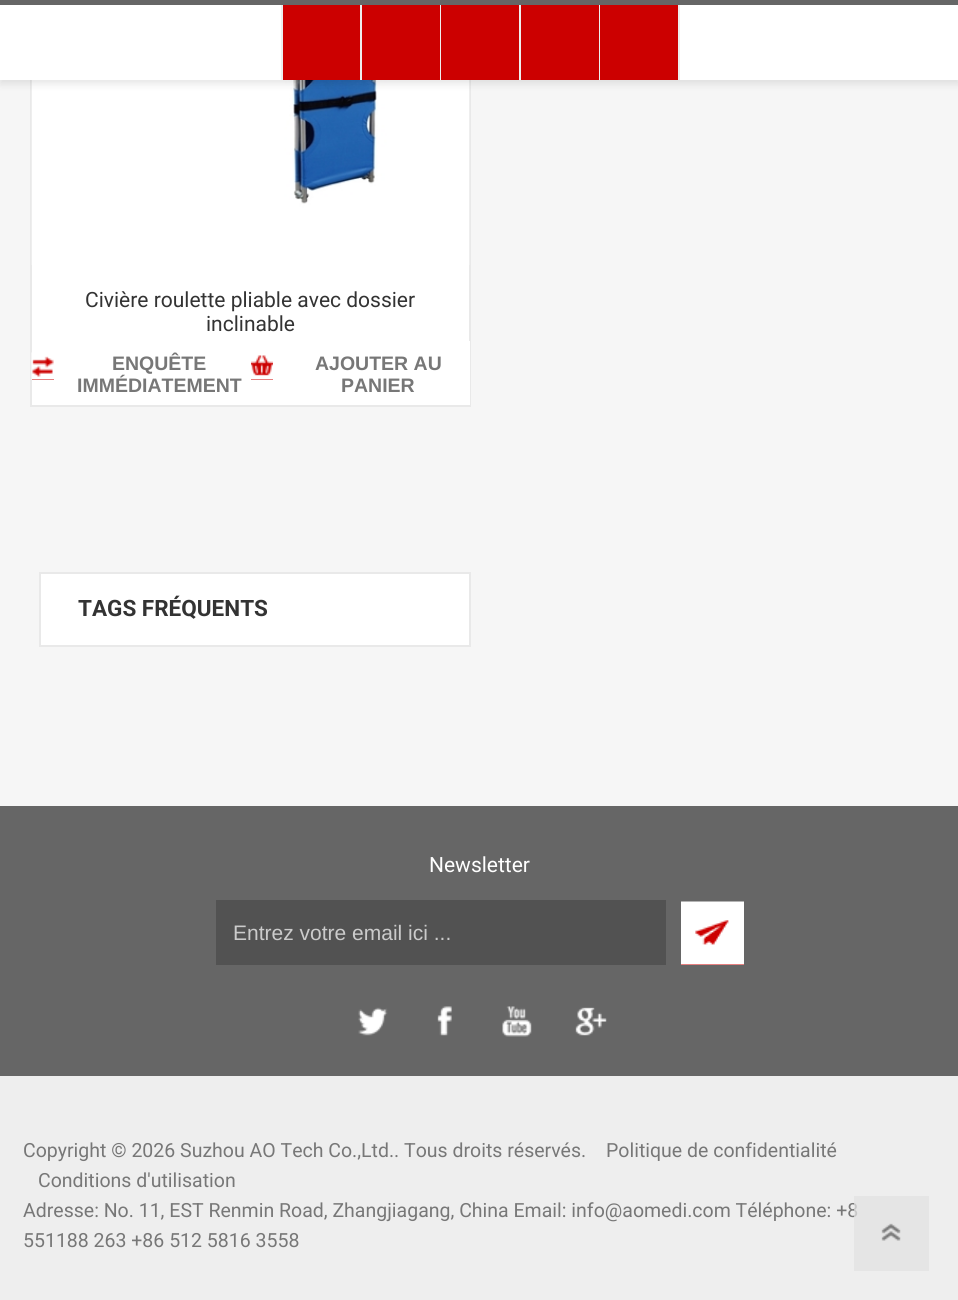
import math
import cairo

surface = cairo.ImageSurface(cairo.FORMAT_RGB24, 958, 1300)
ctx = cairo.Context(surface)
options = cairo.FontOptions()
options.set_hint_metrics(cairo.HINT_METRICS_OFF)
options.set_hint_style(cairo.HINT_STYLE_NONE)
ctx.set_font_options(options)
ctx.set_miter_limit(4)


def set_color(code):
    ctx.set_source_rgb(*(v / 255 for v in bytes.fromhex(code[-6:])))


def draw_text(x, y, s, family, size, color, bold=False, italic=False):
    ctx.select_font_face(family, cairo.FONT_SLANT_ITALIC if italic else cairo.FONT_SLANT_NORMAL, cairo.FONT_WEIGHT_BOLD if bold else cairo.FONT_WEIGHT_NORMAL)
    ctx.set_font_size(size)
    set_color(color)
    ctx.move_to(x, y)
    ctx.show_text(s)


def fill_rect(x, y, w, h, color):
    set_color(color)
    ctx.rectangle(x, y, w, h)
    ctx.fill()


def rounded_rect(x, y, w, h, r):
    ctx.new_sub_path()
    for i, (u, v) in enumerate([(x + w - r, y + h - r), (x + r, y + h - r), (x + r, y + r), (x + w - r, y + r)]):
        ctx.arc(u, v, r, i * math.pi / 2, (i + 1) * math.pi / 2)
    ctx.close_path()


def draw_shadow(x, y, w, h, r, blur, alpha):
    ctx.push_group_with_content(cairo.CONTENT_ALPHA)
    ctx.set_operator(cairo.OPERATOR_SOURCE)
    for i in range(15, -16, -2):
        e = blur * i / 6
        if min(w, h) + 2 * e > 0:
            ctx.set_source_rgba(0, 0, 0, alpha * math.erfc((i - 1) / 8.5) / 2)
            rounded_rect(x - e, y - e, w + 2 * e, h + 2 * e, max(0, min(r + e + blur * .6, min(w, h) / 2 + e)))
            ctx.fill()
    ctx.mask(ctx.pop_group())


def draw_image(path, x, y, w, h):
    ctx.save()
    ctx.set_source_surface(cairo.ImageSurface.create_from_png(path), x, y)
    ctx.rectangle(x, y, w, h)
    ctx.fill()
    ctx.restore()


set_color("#f6f6f6")
ctx.paint()
fill_rect(32, 80, 437, 325, "#ffffff")
ctx.rectangle(31, -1, 439, 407)
set_color("#e9e9e9")
ctx.stroke()
draw_image("assets/img1.png", 31, 80, 439, 185)
set_color("#000000")
draw_shadow(0, 5, 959, 79, 0, 4, 0.1)
fill_rect(0, 5, 958, 75, "#ffffff")
fill_rect(0, 0, 958, 5, "#666666")
fill_rect(283, 5, 77, 75, "#cc0000")
fill_rect(360, 5, 2, 75, "#eeeeee")
fill_rect(281, 5, 2, 75, "#eeeeee")
fill_rect(362, 5, 78, 75, "#cc0000")
fill_rect(440, 5, 1, 75, "#eeeeee")
fill_rect(441, 5, 78, 75, "#cc0000")
fill_rect(519, 5, 2, 75, "#eeeeee")
fill_rect(521, 5, 78, 75, "#cc0000")
fill_rect(599, 5, 1, 75, "#eeeeee")
fill_rect(600, 5, 78, 75, "#cc0000")
fill_rect(678, 5, 2, 75, "#eeeeee")
draw_text(85, 307, "Civière roulette pliable avec dossier", "Roboto", 21, "#333333")
draw_text(206, 331, "inclinable", "Roboto", 21, "#333333")
fill_rect(32, 356, 22, 24, "#cc0000")
draw_image("assets/img2.png", 31, 352, 23, 28)
draw_text(112, 370, "ENQUÊTE", "Liberation Sans", 19.5, "#777777", bold=True)
draw_text(77, 392, "IMMÉDIATEMENT", "Liberation Sans", 19.5, "#777777", bold=True)
fill_rect(469, 341, 1, 64, "#ffffff")
fill_rect(251, 355, 22, 25, "#cc0000")
draw_image("assets/img3.png", 251, 353, 22, 27)
draw_text(315, 370, "AJOUTER AU", "Liberation Sans", 19.5, "#777777", bold=True)
draw_text(341, 392, "PANIER", "Liberation Sans", 19.5, "#777777", bold=True)
set_color("#ffffff")
ctx.rectangle(40, 573, 430, 73)
ctx.fill_preserve()
set_color("#e9e9e9")
ctx.stroke()
draw_text(78, 616, "TAGS FRÉQUENTS", "Roboto", 22.5, "#333333", bold=True)
fill_rect(0, 806, 958, 270, "#666666")
draw_text(429, 872, "Newsletter", "Roboto", 21, "#ffffff")
fill_rect(216, 900, 450, 65, "#525252")
draw_text(233, 940, "Entrez votre email ici ...", "Liberation Sans", 21, "#cbcbcb")
fill_rect(681, 920, 63, 45, "#cc0000")
draw_image("assets/img4.png", 681, 901, 63, 64)
draw_image("assets/img5.png", 358, 1007, 30, 29)
draw_image("assets/img6.png", 437, 1006, 15, 30)
draw_image("assets/img7.png", 502, 1006, 30, 31)
draw_image("assets/img8.png", 575, 1007, 32, 29)
fill_rect(0, 1076, 958, 224, "#eeeeee")
draw_text(23, 1157, "Copyright © 2026 Suzhou AO Tech Co.,Ltd.. Tous droits réservés.", "Roboto", 19.5, "#777777")
draw_text(606, 1157, "Politique de confidentialité", "Roboto", 19.5, "#777777")
draw_text(38, 1187, "Conditions d'utilisation", "Roboto", 19.5, "#777777")
draw_text(23, 1217, "Adresse: No. 11, EST Renmin Road, Zhangjiagang, China Email: info@aomedi.com Téléphone: +8", "Roboto", 19.5, "#777777")
draw_text(23, 1247, "551188 263 +86 512 5816 3558", "Roboto", 19.5, "#777777")
ctx.set_source_rgba(0.882, 0.882, 0.882, 0.75)
ctx.rectangle(854, 1196, 75, 75)
ctx.fill()
draw_image("assets/img9.png", 881, 1223, 20, 18)
surface.write_to_png("output.png")
